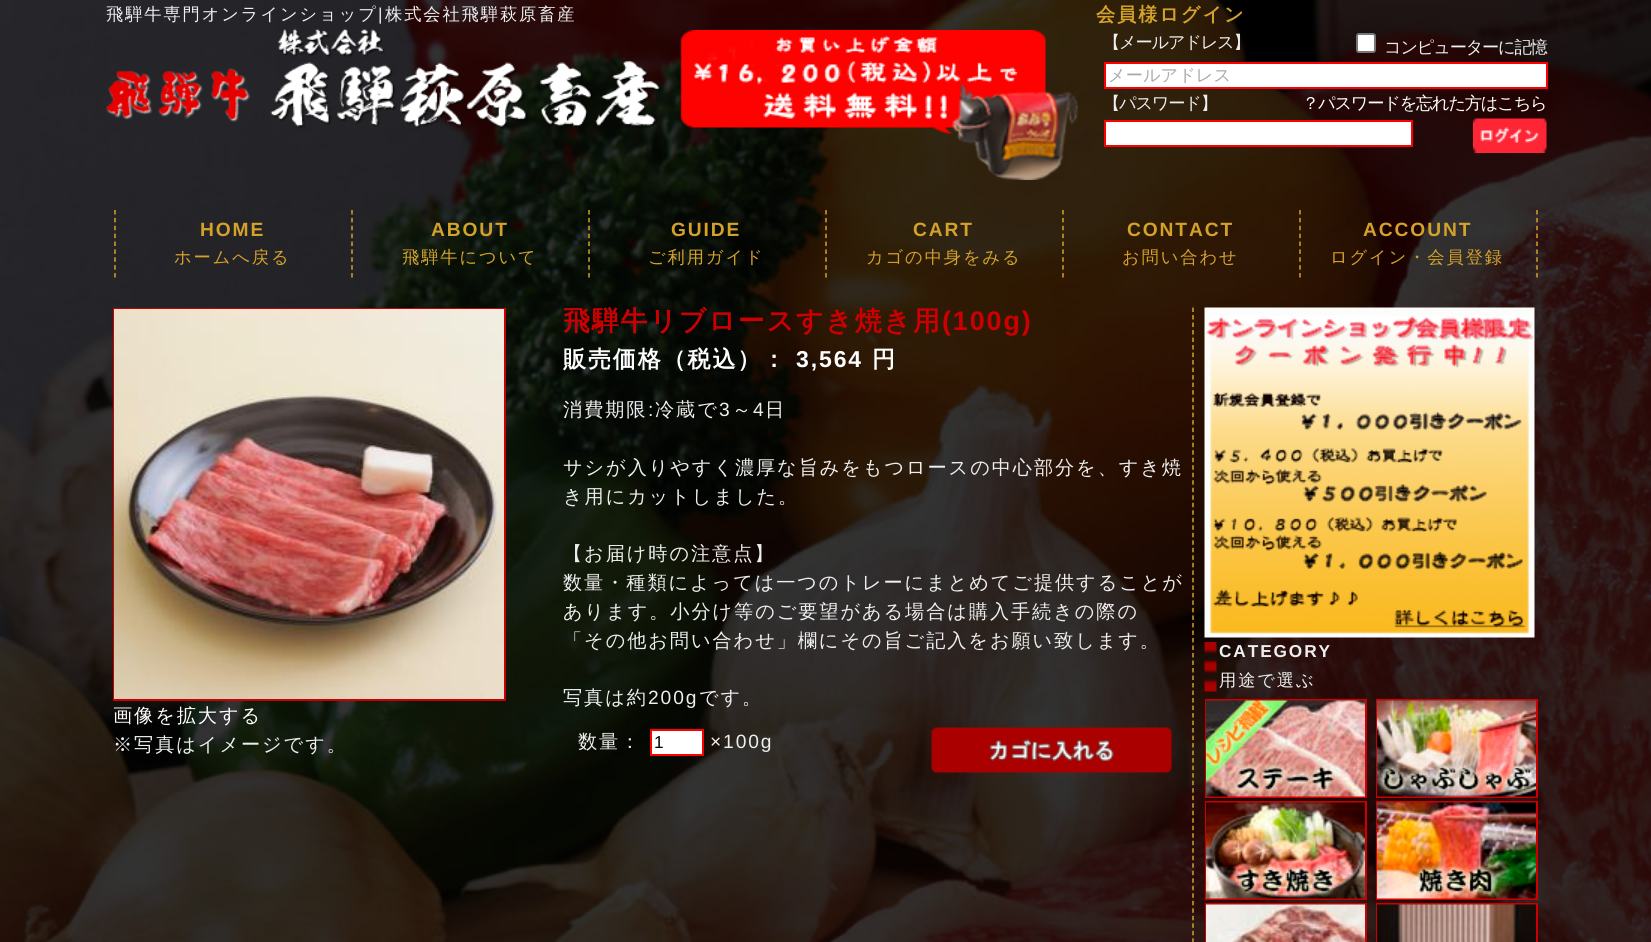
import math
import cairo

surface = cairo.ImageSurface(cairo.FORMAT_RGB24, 1651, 942)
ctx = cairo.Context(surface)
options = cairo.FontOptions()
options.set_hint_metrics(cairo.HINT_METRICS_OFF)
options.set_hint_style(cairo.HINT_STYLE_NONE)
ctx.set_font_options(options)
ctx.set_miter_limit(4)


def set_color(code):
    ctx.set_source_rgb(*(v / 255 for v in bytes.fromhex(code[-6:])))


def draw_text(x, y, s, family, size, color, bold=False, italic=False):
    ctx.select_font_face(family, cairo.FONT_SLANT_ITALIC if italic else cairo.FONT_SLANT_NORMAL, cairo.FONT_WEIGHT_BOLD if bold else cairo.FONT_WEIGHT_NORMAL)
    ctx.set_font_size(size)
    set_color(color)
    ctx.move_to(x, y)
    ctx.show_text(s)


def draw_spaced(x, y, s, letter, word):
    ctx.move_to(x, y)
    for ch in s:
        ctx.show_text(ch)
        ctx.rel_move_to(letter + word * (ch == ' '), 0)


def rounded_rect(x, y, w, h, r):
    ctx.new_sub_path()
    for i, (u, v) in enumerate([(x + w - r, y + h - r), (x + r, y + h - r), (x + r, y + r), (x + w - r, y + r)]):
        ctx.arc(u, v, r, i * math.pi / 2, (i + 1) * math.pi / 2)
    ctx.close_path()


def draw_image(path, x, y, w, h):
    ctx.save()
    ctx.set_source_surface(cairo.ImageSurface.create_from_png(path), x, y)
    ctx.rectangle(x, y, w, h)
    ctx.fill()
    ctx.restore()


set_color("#ffffff")
ctx.paint()
draw_image("assets/img1.png", 0, 0, 1651, 942)
ctx.select_font_face("WenQuanYi Zen Hei Medium")
ctx.set_font_size(17.25)
set_color("#eeeeee")
draw_spaced(106, 20, "飛騨牛専門オンラインショップ", 1.9, 0)
ctx.select_font_face("Liberation Sans")
draw_spaced(378, 20, "|", 1.9, 0)
ctx.select_font_face("WenQuanYi Zen Hei Medium")
draw_spaced(385, 20, "株式会社飛騨萩原畜産", 1.9, 0)
draw_image("assets/img2.png", 106, 28, 554, 101)
draw_image("assets/img3.png", 680, 30, 399, 150)
ctx.select_font_face("WenQuanYi Zen Hei", cairo.FONT_SLANT_NORMAL, cairo.FONT_WEIGHT_BOLD)
ctx.set_font_size(19.2)
set_color("#d4a12b")
draw_spaced(1096, 21, "会員様ログイン", 1.9, 0)
ctx.select_font_face("WenQuanYi Zen Hei Medium")
ctx.set_font_size(17.25)
set_color("#eeeeee")
draw_spaced(1103, 48, "【メールアドレス】", -1.25, 0)
set_color("#ffffff")
rounded_rect(1357, 34, 18, 18, 2)
ctx.fill_preserve()
set_color("#767676")
ctx.stroke()
set_color("#eeeeee")
draw_spaced(1384, 53, "コンピューターに記憶", -1.25, 0)
set_color("#ffffff")
ctx.rectangle(1105, 63, 442, 25)
ctx.fill_preserve()
set_color("#ff0000")
ctx.stroke()
draw_text(1108, 81, "メールアドレス", "WenQuanYi Zen Hei Medium", 17.25, "#aaaaaa")
set_color("#eeeeee")
draw_spaced(1103, 109, "【パスワード】", -1.25, 0)
set_color("#ffffff")
draw_spaced(1302, 109, "？パスワードを忘れた方はこちら", -1.25, 0)
ctx.rectangle(1105, 121, 307, 25)
ctx.fill_preserve()
set_color("#ff0000")
ctx.stroke()
draw_image("assets/img4.png", 1473, 118, 74, 35)
ctx.new_path()
ctx.move_to(352, 210)
ctx.line_to(352, 277.5)
set_color("#d4a12b")
ctx.set_line_width(1.5)
ctx.set_dash([4.5, 3.38])
ctx.stroke()
ctx.new_path()
ctx.move_to(115, 210)
ctx.line_to(115, 277.5)
ctx.stroke()
ctx.select_font_face("Liberation Sans", cairo.FONT_SLANT_NORMAL, cairo.FONT_WEIGHT_BOLD)
ctx.set_font_size(19.2)
draw_spaced(200, 236, "HOME", 1.9, 0)
ctx.select_font_face("WenQuanYi Zen Hei Medium")
ctx.set_font_size(17.25)
draw_spaced(174, 263, "ホームへ戻る", 1.9, 0)
ctx.new_path()
ctx.move_to(589, 210)
ctx.line_to(589, 277.5)
ctx.stroke()
ctx.select_font_face("Liberation Sans", cairo.FONT_SLANT_NORMAL, cairo.FONT_WEIGHT_BOLD)
ctx.set_font_size(19.2)
draw_spaced(431, 236, "ABOUT", 1.9, 0)
ctx.select_font_face("WenQuanYi Zen Hei Medium")
ctx.set_font_size(17.25)
draw_spaced(402, 263, "飛騨牛について", 1.9, 0)
ctx.new_path()
ctx.move_to(826, 210)
ctx.line_to(826, 277.5)
ctx.stroke()
ctx.select_font_face("Liberation Sans", cairo.FONT_SLANT_NORMAL, cairo.FONT_WEIGHT_BOLD)
ctx.set_font_size(19.2)
draw_spaced(671, 236, "GUIDE", 1.9, 0)
ctx.select_font_face("WenQuanYi Zen Hei Medium")
ctx.set_font_size(17.25)
draw_spaced(648, 263, "ご利用ガイド", 1.9, 0)
ctx.new_path()
ctx.move_to(1063, 210)
ctx.line_to(1063, 277.5)
ctx.stroke()
ctx.select_font_face("Liberation Sans", cairo.FONT_SLANT_NORMAL, cairo.FONT_WEIGHT_BOLD)
ctx.set_font_size(19.2)
draw_spaced(913, 236, "CART", 1.9, 0)
ctx.select_font_face("WenQuanYi Zen Hei Medium")
ctx.set_font_size(17.25)
draw_spaced(866, 263, "カゴの中身をみる", 1.9, 0)
ctx.new_path()
ctx.move_to(1300, 210)
ctx.line_to(1300, 277.5)
ctx.stroke()
ctx.select_font_face("Liberation Sans", cairo.FONT_SLANT_NORMAL, cairo.FONT_WEIGHT_BOLD)
ctx.set_font_size(19.2)
draw_spaced(1127, 236, "CONTACT", 1.9, 0)
ctx.select_font_face("WenQuanYi Zen Hei Medium")
ctx.set_font_size(17.25)
draw_spaced(1122, 263, "お問い合わせ", 1.9, 0)
ctx.new_path()
ctx.move_to(1537, 210)
ctx.line_to(1537, 277.5)
ctx.stroke()
ctx.select_font_face("Liberation Sans", cairo.FONT_SLANT_NORMAL, cairo.FONT_WEIGHT_BOLD)
ctx.set_font_size(19.2)
draw_spaced(1363, 236, "ACCOUNT", 1.9, 0)
ctx.select_font_face("WenQuanYi Zen Hei Medium")
ctx.set_font_size(17.25)
draw_spaced(1330, 263, "ログイン・会員登録", 1.9, 0)
ctx.rectangle(114, 309, 391, 391)
set_color("#cc0000")
ctx.set_line_width(2)
ctx.set_dash([])
ctx.stroke()
draw_image("assets/img5.png", 114, 309, 390, 390)
ctx.set_font_size(19.2)
set_color("#ffffff")
draw_spaced(113, 722, "画像を拡大する", 1.9, 0)
set_color("#eeeeee")
draw_spaced(113, 751, "※写真はイメージです。", 1.9, 0)
ctx.select_font_face("WenQuanYi Zen Hei", cairo.FONT_SLANT_NORMAL, cairo.FONT_WEIGHT_BOLD)
ctx.set_font_size(26.9)
set_color("#cc0000")
draw_spaced(563, 330, "飛騨牛リブロースすき焼き用", 1.9, 0)
ctx.select_font_face("Liberation Sans", cairo.FONT_SLANT_NORMAL, cairo.FONT_WEIGHT_BOLD)
draw_spaced(942, 330, "(100g)", 1.9, 0)
ctx.select_font_face("WenQuanYi Zen Hei", cairo.FONT_SLANT_NORMAL, cairo.FONT_WEIGHT_BOLD)
ctx.set_font_size(23)
set_color("#ffffff")
draw_spaced(563, 367, "販売価格（税込）：", 1.9, 0)
ctx.select_font_face("Liberation Sans", cairo.FONT_SLANT_NORMAL, cairo.FONT_WEIGHT_BOLD)
draw_spaced(796, 367, "3,564", 1.9, 0)
ctx.select_font_face("WenQuanYi Zen Hei", cairo.FONT_SLANT_NORMAL, cairo.FONT_WEIGHT_BOLD)
draw_spaced(872, 367, "円", 1.9, 0)
ctx.select_font_face("WenQuanYi Zen Hei Medium")
ctx.set_font_size(19.2)
set_color("#eeeeee")
draw_spaced(563, 416, "消費期限", 1.9, 0)
ctx.select_font_face("Liberation Sans")
draw_spaced(648, 416, ":", 1.9, 0)
ctx.select_font_face("WenQuanYi Zen Hei Medium")
draw_spaced(655, 416, "冷蔵で", 1.9, 0)
ctx.select_font_face("Liberation Sans")
draw_spaced(719, 416, "3", 1.9, 0)
ctx.select_font_face("WenQuanYi Zen Hei Medium")
draw_spaced(732, 416, "～", 1.9, 0)
ctx.select_font_face("Liberation Sans")
draw_spaced(753, 416, "4", 1.9, 0)
ctx.select_font_face("WenQuanYi Zen Hei Medium")
draw_spaced(765, 416, "日", 1.9, 0)
draw_spaced(563, 474, "サシが入りやすく濃厚な旨みをもつロースの中心部分を、すき焼", 1.9, 0)
draw_spaced(563, 503, "き用にカットしました。", 1.9, 0)
draw_spaced(563, 560, "【お届け時の注意点】", 1.9, 0)
draw_spaced(563, 589, "数量・種類によっては一つのトレーにまとめてご提供することが", 1.9, 0)
draw_spaced(563, 618, "あります。小分け等のご要望がある場合は購入手続きの際の", 1.9, 0)
draw_spaced(563, 647, "「その他お問い合わせ」欄にその旨ご記入をお願い致します。", 1.9, 0)
draw_spaced(563, 704, "写真は約", 1.9, 0)
ctx.select_font_face("Liberation Sans")
draw_spaced(648, 704, "200g", 1.9, 0)
ctx.select_font_face("WenQuanYi Zen Hei Medium")
draw_spaced(699, 704, "です。", 1.9, 0)
draw_spaced(578, 748, "数量：", 1.9, 0)
set_color("#ffffff")
ctx.rectangle(651, 730, 52, 25)
ctx.fill_preserve()
set_color("#ff0000")
ctx.stroke()
draw_text(654, 748, "1", "Liberation Sans", 17.25, "#000000")
ctx.set_font_size(19.2)
set_color("#eeeeee")
draw_spaced(710, 748, "×100g", 1.9, 0)
draw_image("assets/img6.png", 931, 727, 241, 46)
ctx.new_path()
ctx.move_to(1193, 307.5)
ctx.line_to(1193, 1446)
set_color("#d4a12b")
ctx.set_line_width(1.5)
ctx.set_dash([4.5, 3.01])
ctx.stroke()
draw_image("assets/img7.png", 1204, 307, 331, 331)
draw_image("assets/img8.png", 1204, 642, 13, 50)
ctx.select_font_face("Liberation Sans", cairo.FONT_SLANT_NORMAL, cairo.FONT_WEIGHT_BOLD)
ctx.set_font_size(17.25)
set_color("#eeeeee")
draw_spaced(1219, 657, "CATEGORY", 1.9, 0)
ctx.select_font_face("WenQuanYi Zen Hei Medium")
draw_spaced(1219, 686, "用途で選ぶ", 1.9, 0)
ctx.rectangle(1206, 700, 160, 97)
set_color("#cc0000")
ctx.set_line_width(2)
ctx.set_dash([])
ctx.stroke()
ctx.rectangle(1377, 700, 160, 97)
ctx.stroke()
draw_image("assets/img9.png", 1206, 700, 159, 97)
draw_image("assets/img10.png", 1377, 700, 159, 97)
ctx.rectangle(1206, 802, 160, 97)
ctx.stroke()
ctx.rectangle(1377, 802, 160, 97)
ctx.stroke()
draw_image("assets/img11.png", 1206, 802, 159, 97)
draw_image("assets/img12.png", 1377, 802, 159, 97)
ctx.rectangle(1206, 904, 160, 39)
ctx.stroke()
ctx.rectangle(1377, 904, 160, 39)
ctx.stroke()
draw_image("assets/img13.png", 1206, 904, 159, 38)
draw_image("assets/img14.png", 1377, 904, 159, 38)
surface.write_to_png("output.png")
